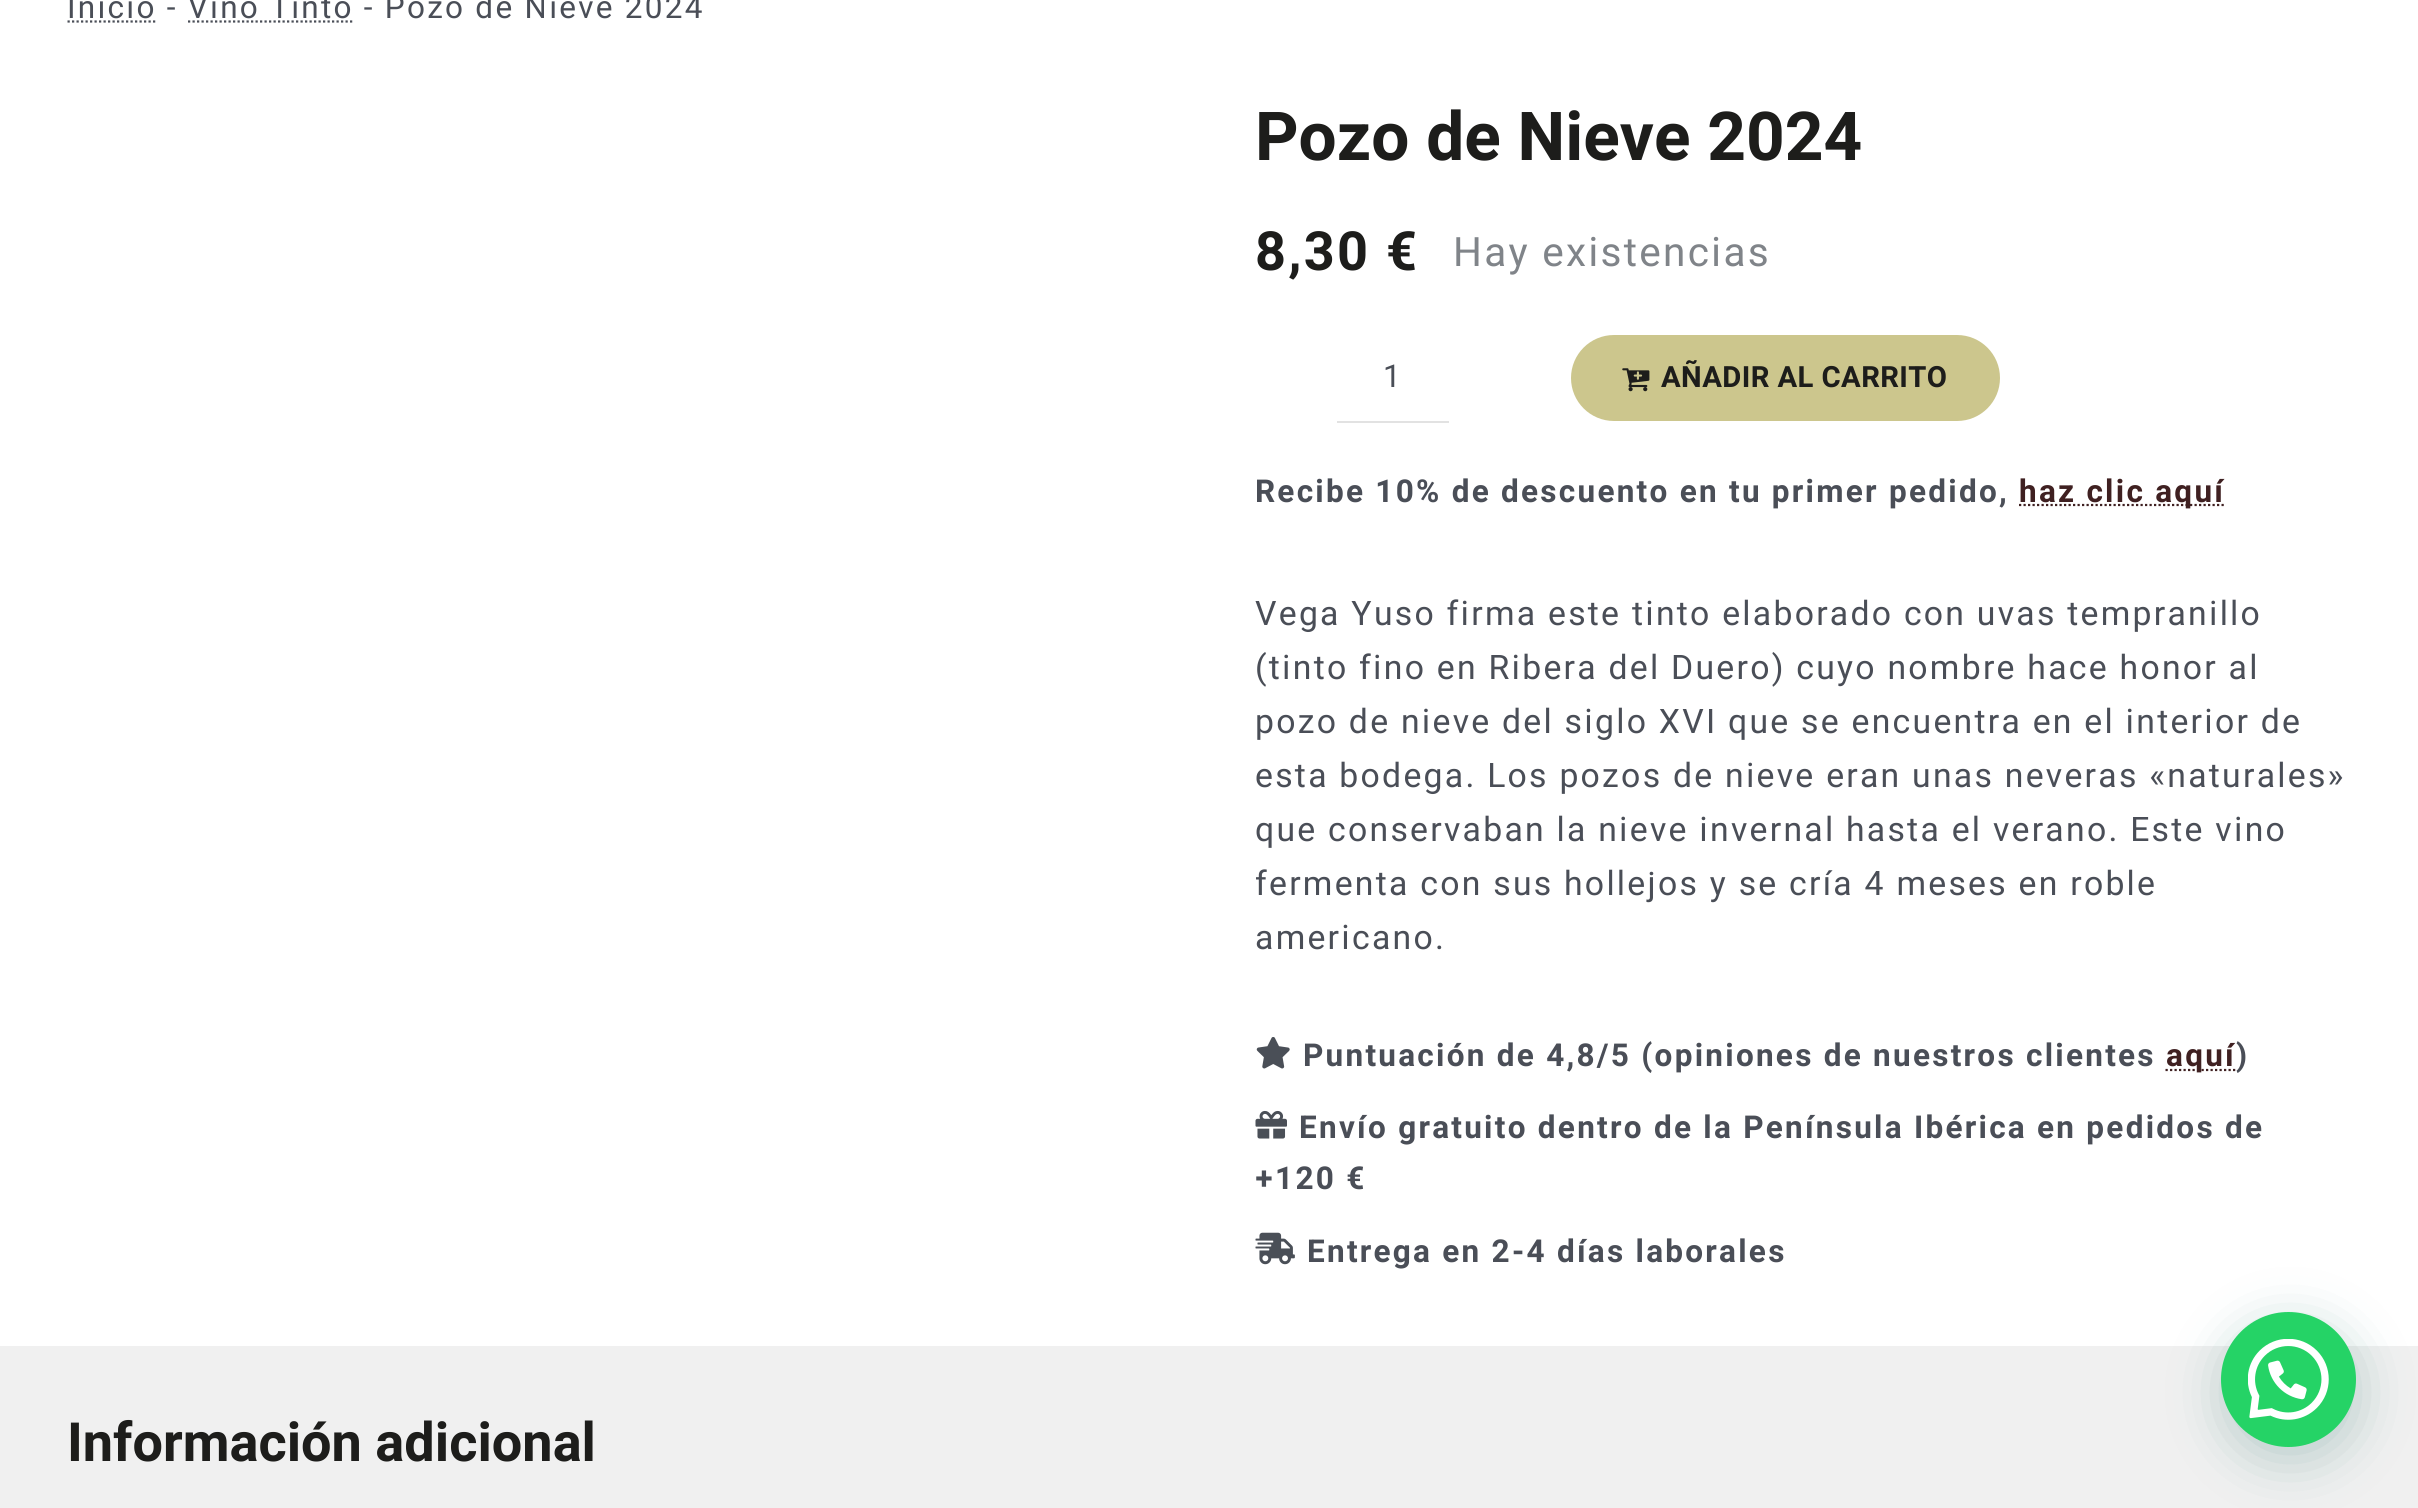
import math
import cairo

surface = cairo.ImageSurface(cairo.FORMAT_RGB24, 2418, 1508)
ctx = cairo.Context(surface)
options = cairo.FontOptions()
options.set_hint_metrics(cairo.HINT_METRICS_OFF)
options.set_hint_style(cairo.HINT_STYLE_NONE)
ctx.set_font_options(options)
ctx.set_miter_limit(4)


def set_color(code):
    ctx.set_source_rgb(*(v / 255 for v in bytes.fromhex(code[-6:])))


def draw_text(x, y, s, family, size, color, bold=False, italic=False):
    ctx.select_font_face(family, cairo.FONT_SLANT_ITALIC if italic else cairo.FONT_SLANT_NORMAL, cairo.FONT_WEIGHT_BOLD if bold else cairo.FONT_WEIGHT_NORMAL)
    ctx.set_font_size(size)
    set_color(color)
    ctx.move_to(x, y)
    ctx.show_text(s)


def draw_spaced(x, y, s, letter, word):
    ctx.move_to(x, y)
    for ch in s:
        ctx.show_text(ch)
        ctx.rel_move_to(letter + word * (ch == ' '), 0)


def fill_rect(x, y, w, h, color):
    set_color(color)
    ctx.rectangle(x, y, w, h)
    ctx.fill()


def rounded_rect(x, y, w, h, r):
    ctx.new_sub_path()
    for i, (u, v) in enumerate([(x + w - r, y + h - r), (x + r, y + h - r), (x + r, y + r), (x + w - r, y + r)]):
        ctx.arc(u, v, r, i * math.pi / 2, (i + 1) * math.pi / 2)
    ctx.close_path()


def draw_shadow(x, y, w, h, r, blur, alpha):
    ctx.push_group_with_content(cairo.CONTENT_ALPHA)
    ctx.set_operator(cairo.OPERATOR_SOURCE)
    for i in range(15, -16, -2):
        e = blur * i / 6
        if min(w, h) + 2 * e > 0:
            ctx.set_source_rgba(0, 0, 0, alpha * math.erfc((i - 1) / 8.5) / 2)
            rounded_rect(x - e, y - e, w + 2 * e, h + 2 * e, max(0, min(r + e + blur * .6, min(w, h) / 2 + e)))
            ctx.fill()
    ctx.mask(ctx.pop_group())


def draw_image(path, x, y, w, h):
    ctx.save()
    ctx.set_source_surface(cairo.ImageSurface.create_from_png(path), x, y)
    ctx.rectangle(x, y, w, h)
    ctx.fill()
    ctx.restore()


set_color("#ffffff")
ctx.paint()
ctx.select_font_face("Heebo")
ctx.set_font_size(31.5)
set_color("#4a4e57")
draw_spaced(67, 18, "Inicio - Vino Tinto - Pozo de Nieve 2024", 2.25, 0)
ctx.new_path()
ctx.move_to(67.5, 21.5)
ctx.line_to(157, 21.5)
ctx.set_line_width(2.2)
ctx.set_dash([2.25, 2.25])
ctx.stroke()
ctx.new_path()
ctx.move_to(188, 21.5)
ctx.line_to(354, 21.5)
ctx.stroke()
draw_text(1255, 160, "Pozo de Nieve 2024", "Heebo", 67.5, "#1d1d1b", bold=True)
ctx.set_font_size(54)
draw_spaced(1255, 270, "8,30 €", 2.25, 0)
ctx.select_font_face("Heebo")
ctx.set_font_size(40.5)
set_color("#808489")
draw_spaced(1453, 266, "Hay existencias", 2.25, 0)
fill_rect(1337, 421, 112, 2, "#e2e2e2")
draw_text(1383, 387, "1", "Heebo", 31.5, "#4a4e57")
set_color("#ccc68d")
rounded_rect(1571, 335, 429, 86, 43)
ctx.fill()
draw_image("assets/img1.png", 1622, 368, 28, 24)
ctx.select_font_face("Heebo", cairo.FONT_SLANT_NORMAL, cairo.FONT_WEIGHT_BOLD)
ctx.set_font_size(29.25)
set_color("#1d1d1b")
draw_spaced(1661, 387, "AÑADIR AL CARRITO", 0.4, 0)
ctx.set_font_size(31.5)
set_color("#4a4e57")
draw_spaced(1255, 502, "Recibe 10% de descuento en tu primer pedido,", 2.25, 0)
ctx.new_path()
ctx.move_to(2019, 505)
ctx.line_to(2225, 505)
set_color("#3f2021")
ctx.stroke()
draw_spaced(2019, 502, "haz clic aquí", 2.25, 0)
ctx.select_font_face("Heebo")
ctx.set_font_size(33.75)
set_color("#4a4e57")
draw_spaced(1255, 625, "Vega Yuso firma este tinto elaborado con uvas tempranillo", 2.25, 0)
draw_spaced(1255, 679, "(tinto fino en Ribera del Duero) cuyo nombre hace honor al", 2.25, 0)
draw_spaced(1255, 733, "pozo de nieve del siglo XVI que se encuentra en el interior de", 2.25, 0)
draw_spaced(1255, 787, "esta bodega. Los pozos de nieve eran unas neveras «naturales»", 2.25, 0)
draw_spaced(1255, 841, "que conservaban la nieve invernal hasta el verano. Este vino", 2.25, 0)
draw_spaced(1255, 895, "fermenta con sus hollejos y se cría 4 meses en roble", 2.25, 0)
draw_spaced(1255, 949, "americano.", 2.25, 0)
draw_image("assets/img2.png", 1256, 1037, 34, 32)
ctx.select_font_face("Heebo", cairo.FONT_SLANT_NORMAL, cairo.FONT_WEIGHT_BOLD)
ctx.set_font_size(31.5)
draw_spaced(1303, 1066, "Puntuación de 4,8/5 (opiniones de nuestros clientes", 2.25, 0)
ctx.new_path()
ctx.move_to(2165.5, 1070)
ctx.line_to(2235.5, 1070)
set_color("#3f2021")
ctx.stroke()
draw_spaced(2166, 1066, "aquí", 2.25, 0)
set_color("#4a4e57")
draw_spaced(2236, 1066, ")", 2.25, 0)
draw_image("assets/img3.png", 1255, 1110, 32, 29)
draw_spaced(1299, 1138, "Envío gratuito dentro de la Península Ibérica en pedidos de", 2.25, 0)
draw_spaced(1255, 1189, "+120 €", 2.25, 0)
draw_image("assets/img4.png", 1255, 1232, 40, 33)
draw_spaced(1307, 1262, "Entrega en 2-4 días laborales", 2.25, 0)
fill_rect(0, 1346, 2418, 162, "#f0f0f0")
draw_text(67, 1461, "Información adicional", "Heebo", 54, "#1d1d1b", bold=True)
set_color("#075e54")
draw_shadow(2223, 1325, 135, 135, 67.5, 27, 0.24)
set_color("#25d366")
ctx.arc(2288.5, 1379.5, 67.5, 0, 2 * math.pi)
ctx.fill()
draw_image("assets/img5.png", 2248, 1339, 81, 81)
surface.write_to_png("output.png")
